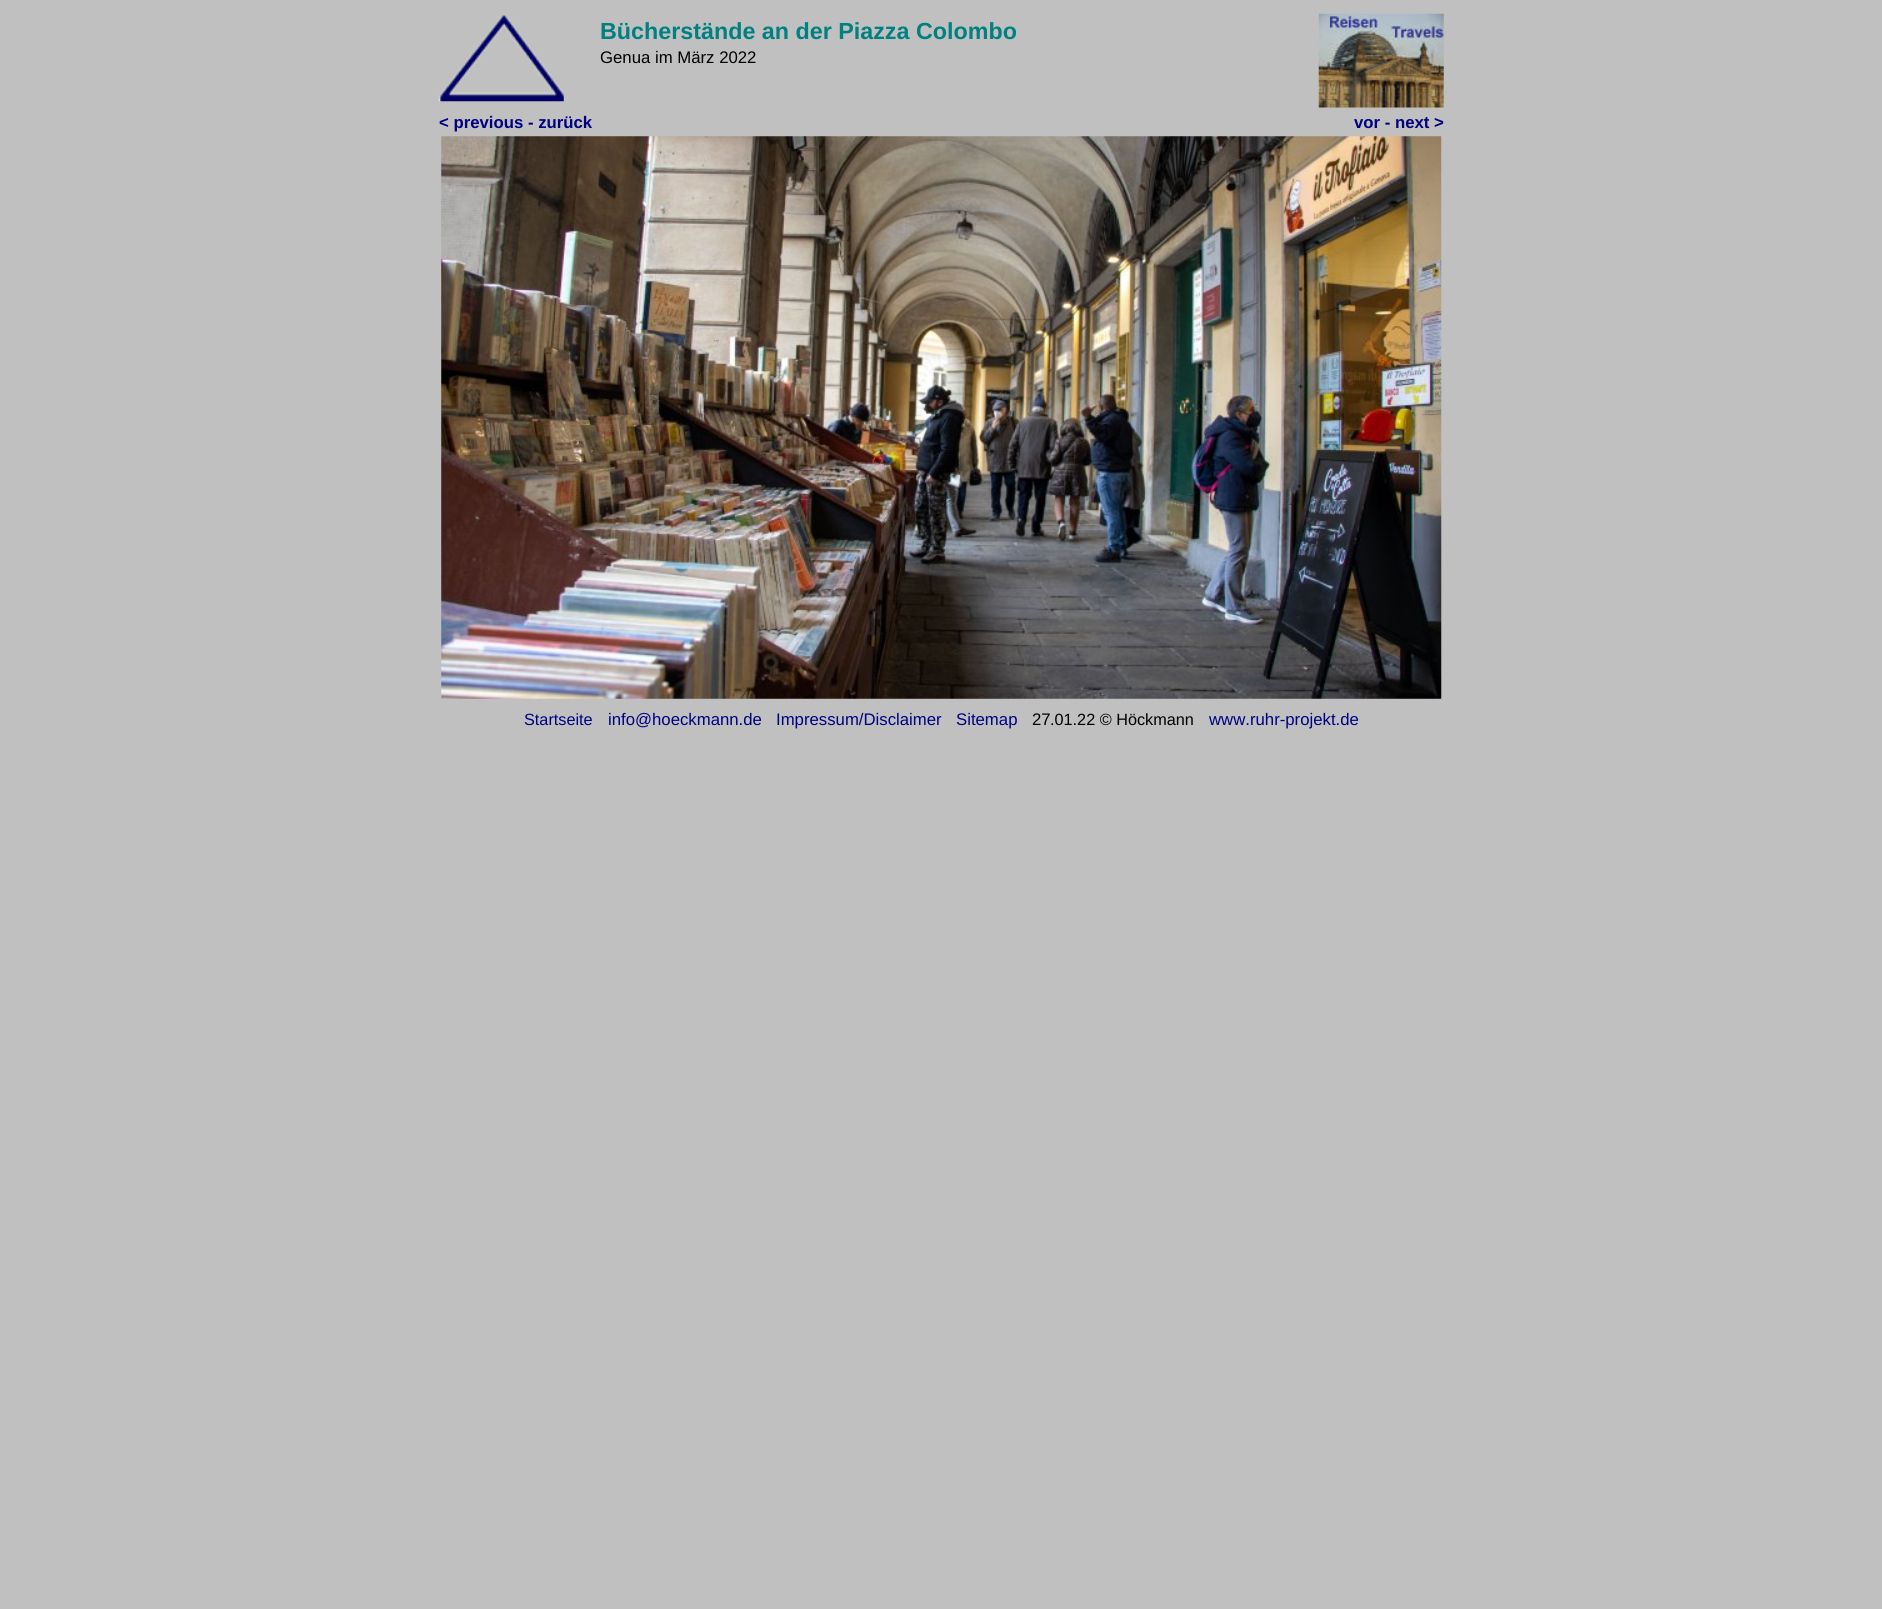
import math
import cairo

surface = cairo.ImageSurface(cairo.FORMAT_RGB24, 1882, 1609)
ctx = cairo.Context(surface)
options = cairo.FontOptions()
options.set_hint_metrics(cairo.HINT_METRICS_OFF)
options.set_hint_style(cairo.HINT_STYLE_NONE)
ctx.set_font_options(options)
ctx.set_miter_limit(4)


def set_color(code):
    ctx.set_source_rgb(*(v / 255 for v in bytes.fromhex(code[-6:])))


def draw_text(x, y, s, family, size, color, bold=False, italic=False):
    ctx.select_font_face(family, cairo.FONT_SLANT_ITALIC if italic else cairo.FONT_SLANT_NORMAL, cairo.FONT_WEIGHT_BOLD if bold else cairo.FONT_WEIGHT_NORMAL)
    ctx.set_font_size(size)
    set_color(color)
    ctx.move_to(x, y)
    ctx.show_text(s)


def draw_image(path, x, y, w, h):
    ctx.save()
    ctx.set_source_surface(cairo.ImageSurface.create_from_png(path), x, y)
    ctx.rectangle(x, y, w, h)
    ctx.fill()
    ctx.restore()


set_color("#c0c0c0")
ctx.paint()
draw_image("assets/img1.png", 438, 15, 126, 87)
draw_text(600, 39, "Bücherstände an der Piazza Colombo", "Liberation Sans", 23.3, "#008080", bold=True)
draw_text(600, 63, "Genua im März 2022", "Liberation Sans", 16.75, "#000000")
draw_image("assets/img2.png", 1318, 13, 126, 95)
draw_text(439, 128, "< previous - zurück", "Liberation Sans", 16.75, "#000080", bold=True)
draw_text(1354, 128, "vor - next >", "Liberation Sans", 16.75, "#000080", bold=True)
draw_image("assets/img3.png", 441, 136, 1001, 563)
draw_text(524, 725, "Startseite", "Liberation Sans", 16.25, "#000080")
draw_text(608, 725, "info@hoeckmann.de", "Liberation Sans", 16.75, "#000080")
draw_text(776, 725, "Impressum/Disclaimer", "Liberation Sans", 16.75, "#000080")
draw_text(956, 725, "Sitemap", "Liberation Sans", 16.75, "#000080")
draw_text(1032, 725, "27", "Liberation Sans", 16.75, "#000000")
draw_text(1050, 725, ".01.22 © Höckmann", "Liberation Sans", 16.25, "#000000")
draw_text(1209, 725, "www.ruhr-projekt.de", "Liberation Sans", 16.75, "#000080")
surface.write_to_png("output.png")
